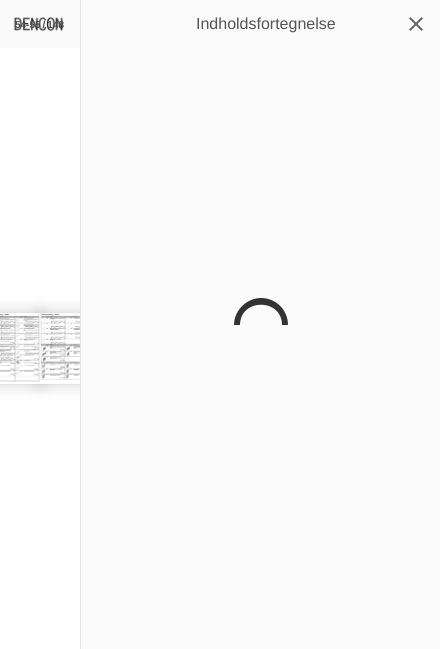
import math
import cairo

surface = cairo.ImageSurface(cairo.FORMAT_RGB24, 440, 649)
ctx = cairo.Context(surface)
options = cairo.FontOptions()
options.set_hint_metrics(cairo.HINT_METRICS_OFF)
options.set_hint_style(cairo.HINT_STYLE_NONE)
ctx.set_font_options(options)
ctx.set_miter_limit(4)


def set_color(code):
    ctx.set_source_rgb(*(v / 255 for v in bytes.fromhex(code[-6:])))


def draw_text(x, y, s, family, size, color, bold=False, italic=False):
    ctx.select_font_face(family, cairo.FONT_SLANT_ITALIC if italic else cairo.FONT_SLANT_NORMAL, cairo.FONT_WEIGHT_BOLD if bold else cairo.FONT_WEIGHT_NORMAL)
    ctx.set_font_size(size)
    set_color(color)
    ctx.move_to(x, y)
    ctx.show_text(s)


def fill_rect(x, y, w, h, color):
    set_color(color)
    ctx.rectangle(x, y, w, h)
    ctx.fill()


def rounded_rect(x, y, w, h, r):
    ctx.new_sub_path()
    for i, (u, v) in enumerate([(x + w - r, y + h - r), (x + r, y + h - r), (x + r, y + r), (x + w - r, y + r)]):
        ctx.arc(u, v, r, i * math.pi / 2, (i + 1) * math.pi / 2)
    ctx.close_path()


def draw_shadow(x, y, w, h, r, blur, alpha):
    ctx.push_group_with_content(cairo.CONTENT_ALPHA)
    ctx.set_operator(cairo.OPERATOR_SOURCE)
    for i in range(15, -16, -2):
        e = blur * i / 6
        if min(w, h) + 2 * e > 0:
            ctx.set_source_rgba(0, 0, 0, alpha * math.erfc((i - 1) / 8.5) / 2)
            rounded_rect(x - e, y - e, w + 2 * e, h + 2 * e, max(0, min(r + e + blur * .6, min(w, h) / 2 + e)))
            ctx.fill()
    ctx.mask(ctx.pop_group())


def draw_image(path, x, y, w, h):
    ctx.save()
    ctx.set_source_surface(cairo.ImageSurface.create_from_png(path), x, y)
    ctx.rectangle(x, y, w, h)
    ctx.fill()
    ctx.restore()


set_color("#ffffff")
ctx.paint()
fill_rect(0, 0, 80, 48, "#fafafa")
draw_image("assets/img1.png", 13, 17, 50, 14)
draw_text(15, 28, "54-55 / 148", "Liberation Sans", 10, "#4a4a4a", bold=True)
set_color("#000000")
draw_shadow(-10, 313, 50, 71, 0, 8, 0.2)
draw_shadow(40, 313, 50, 71, 0, 8, 0.2)
fill_rect(0, 313, 80, 71, "#ffffff")
draw_image("assets/img2.png", 0, 313, 40, 69)
draw_image("assets/img3.png", 40, 313, 40, 67)
fill_rect(80, 0, 1, 649, "#e5e5e5")
fill_rect(81, 0, 359, 649, "#fbfbfb")
draw_text(196, 29, "Indholdsfortegnelse", "Liberation Sans", 16, "#555555")
draw_image("assets/img4.png", 409, 17, 14, 14)
set_color("#333333")
ctx.new_path()
ctx.move_to(288, 325)
ctx.curve_to(288, 310, 276, 298, 261, 298)
ctx.curve_to(247, 298, 234, 310, 234, 325)
ctx.line_to(240, 325)
ctx.curve_to(240, 298, 282, 298, 282, 325)
ctx.close_path()
ctx.fill()
surface.write_to_png("output.png")
